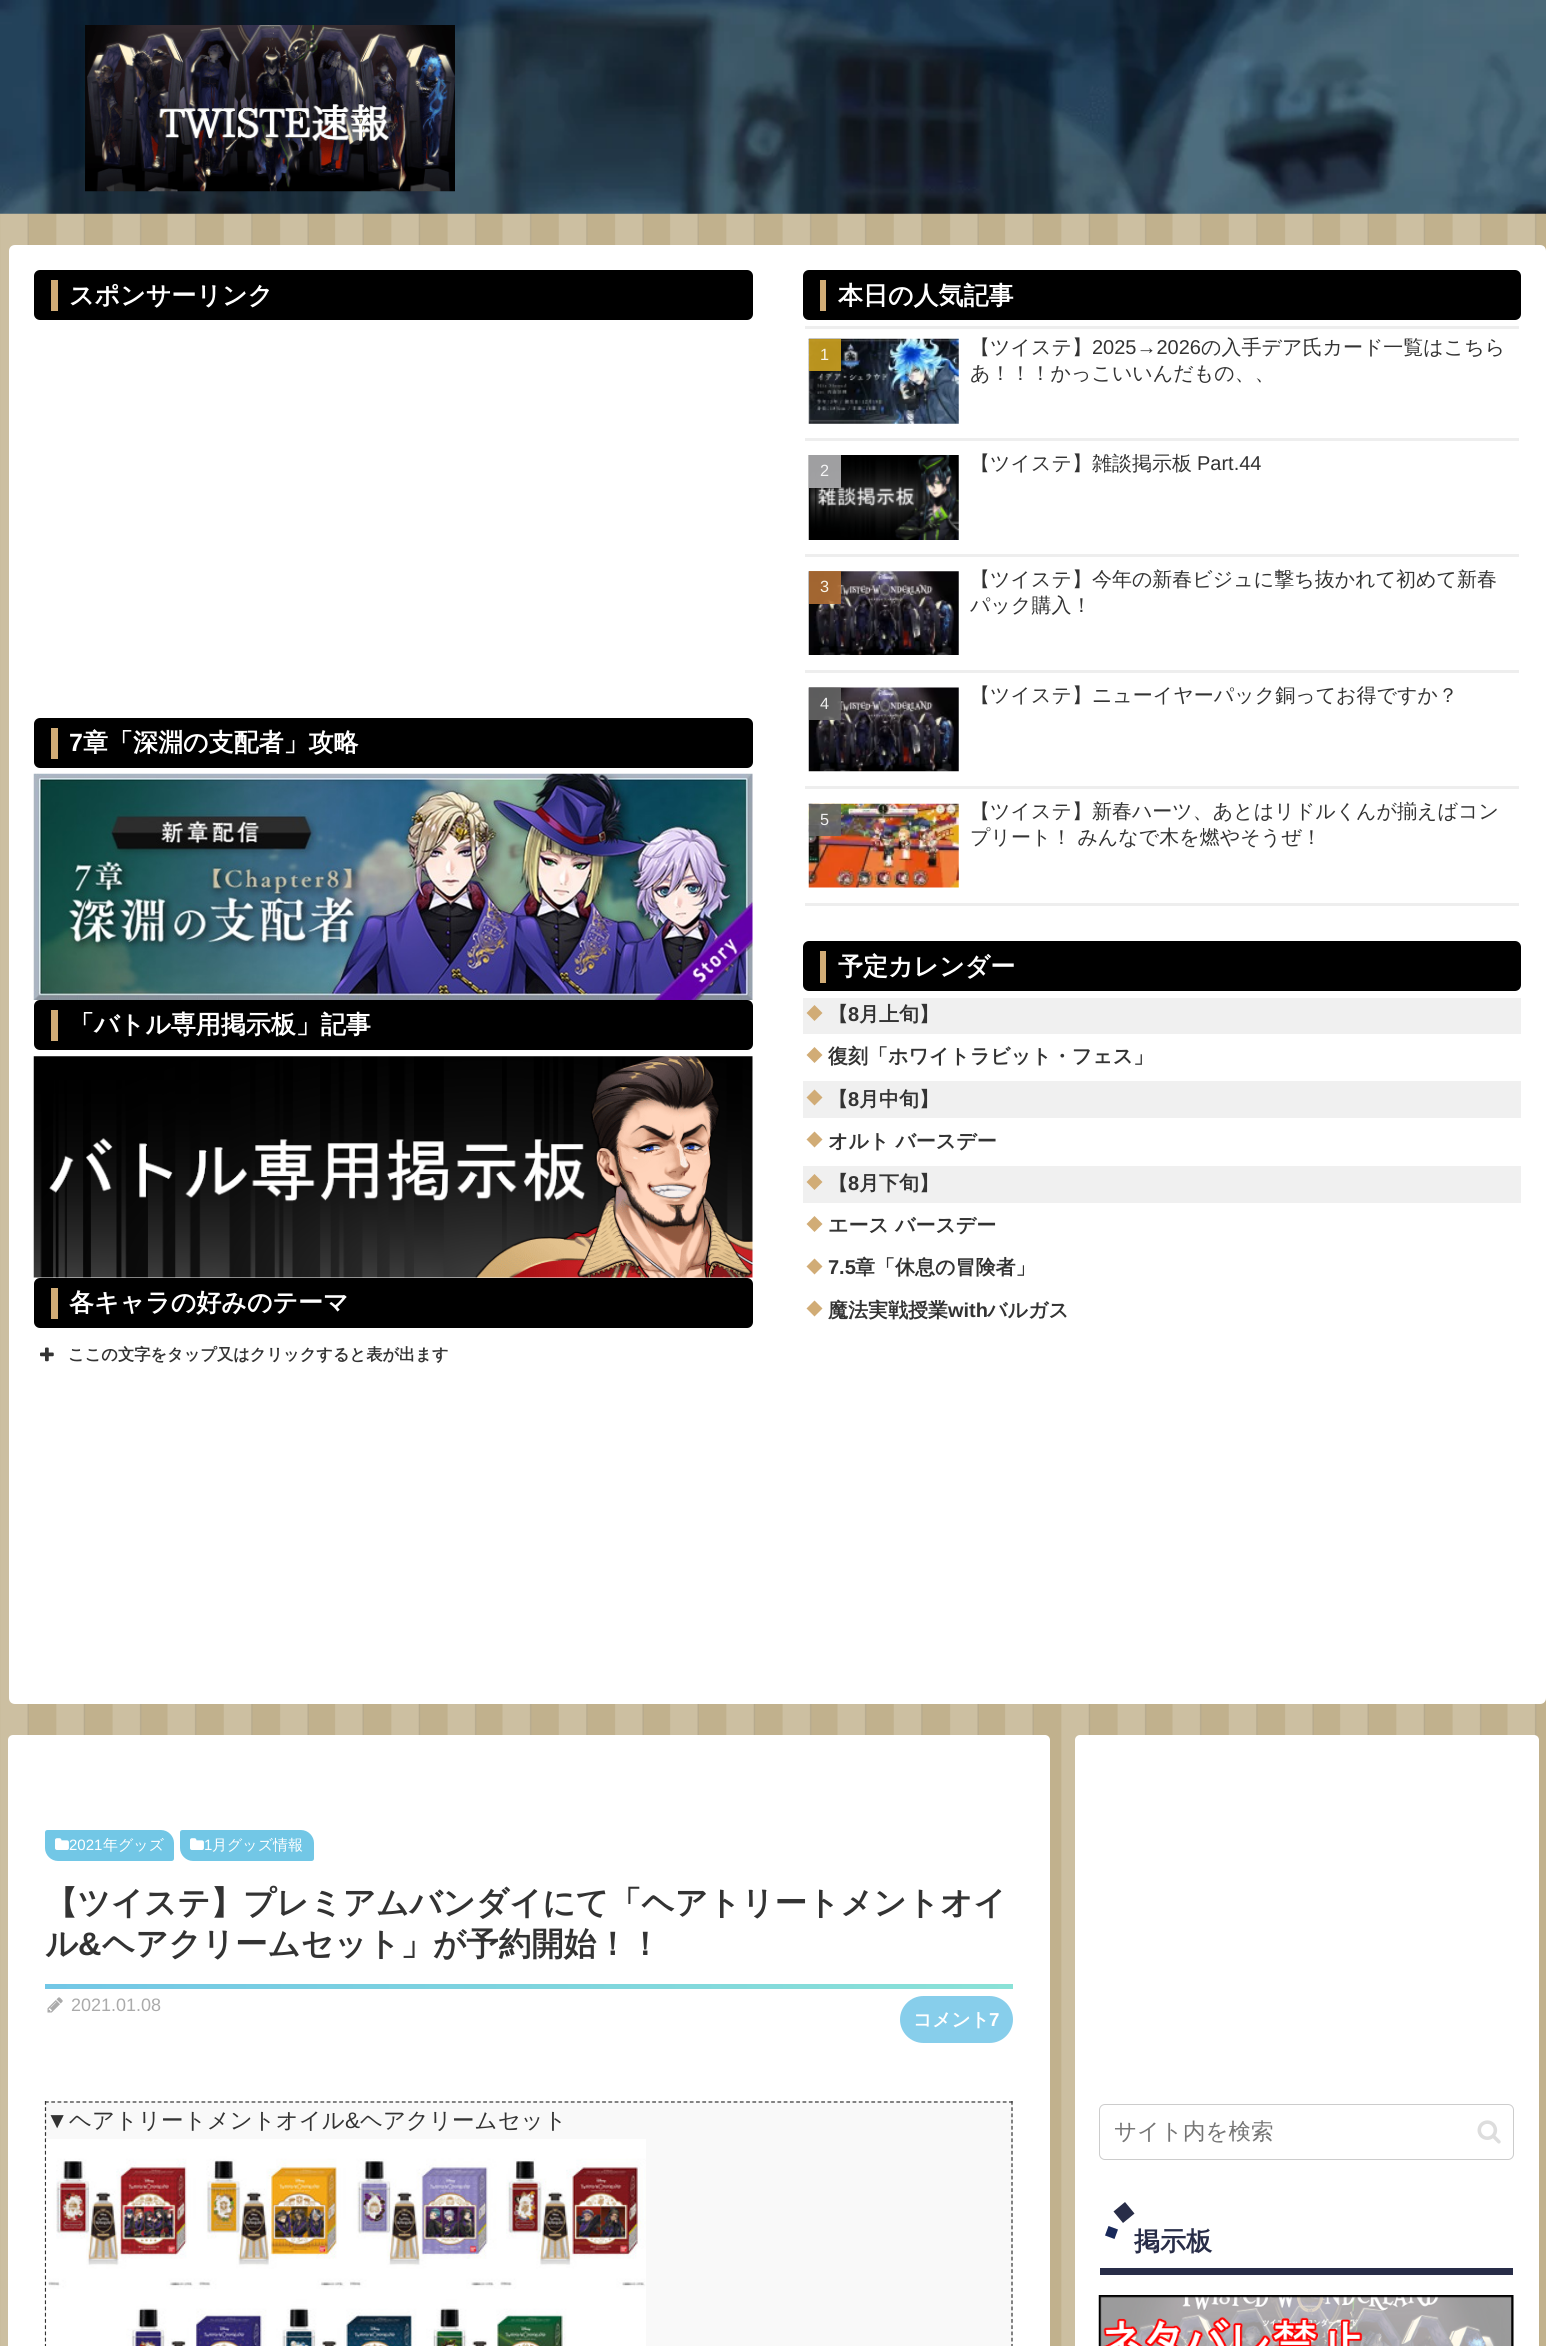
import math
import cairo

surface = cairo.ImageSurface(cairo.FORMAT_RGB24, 1546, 2346)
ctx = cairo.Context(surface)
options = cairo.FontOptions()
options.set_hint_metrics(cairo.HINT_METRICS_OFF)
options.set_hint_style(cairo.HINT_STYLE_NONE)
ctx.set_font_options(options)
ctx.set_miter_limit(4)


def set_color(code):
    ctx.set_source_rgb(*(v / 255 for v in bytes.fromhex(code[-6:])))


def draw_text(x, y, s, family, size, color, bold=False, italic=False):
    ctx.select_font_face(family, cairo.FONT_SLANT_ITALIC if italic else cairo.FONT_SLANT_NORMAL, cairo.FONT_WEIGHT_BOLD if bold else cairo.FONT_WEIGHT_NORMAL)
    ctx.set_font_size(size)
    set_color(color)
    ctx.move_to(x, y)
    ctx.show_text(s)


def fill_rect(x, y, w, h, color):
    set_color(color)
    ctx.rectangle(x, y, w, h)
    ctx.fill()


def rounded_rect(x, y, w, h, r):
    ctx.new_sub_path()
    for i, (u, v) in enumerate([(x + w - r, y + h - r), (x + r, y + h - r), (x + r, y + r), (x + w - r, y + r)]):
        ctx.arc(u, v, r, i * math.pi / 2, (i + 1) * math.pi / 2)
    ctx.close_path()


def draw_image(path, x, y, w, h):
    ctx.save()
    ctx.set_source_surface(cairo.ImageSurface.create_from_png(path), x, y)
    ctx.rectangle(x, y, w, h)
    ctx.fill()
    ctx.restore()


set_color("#ffffff")
ctx.paint()
draw_image("assets/img1.png", 0, 213, 1546, 2133)
draw_image("assets/img2.png", 0, 0, 1546, 214)
draw_image("assets/img3.png", 85, 25, 370, 167)
set_color("#ffffff")
ctx.new_path()
ctx.move_to(15, 245)
ctx.line_to(778, 245)
ctx.line_to(778, 1704)
ctx.line_to(15, 1704)
ctx.curve_to(11.5, 1704, 9, 1701.5, 9, 1698)
ctx.line_to(9, 251)
ctx.curve_to(9, 247.5, 11.5, 245, 15, 245)
ctx.close_path()
ctx.fill()
set_color("#000000")
rounded_rect(34, 270, 719, 50, 6)
ctx.fill()
fill_rect(51, 280, 7, 31, "#d1ac76")
draw_text(69, 304, "スポンサーリンク", "WenQuanYi Zen Hei", 25, "#ffffff", bold=True)
set_color("#000000")
rounded_rect(34, 718, 719, 50, 6)
ctx.fill()
fill_rect(51, 728, 7, 31, "#d1ac76")
draw_text(69, 751, "7", "Liberation Sans", 25, "#ffffff", bold=True)
draw_text(83, 751, "章「深淵の支配者」攻略", "WenQuanYi Zen Hei", 25, "#ffffff", bold=True)
draw_image("assets/img4.png", 33, 773, 720, 227)
set_color("#000000")
rounded_rect(34, 1000, 719, 50, 6)
ctx.fill()
fill_rect(51, 1010, 7, 31, "#d1ac76")
draw_text(69, 1033, "「バトル専用掲示板」記事", "WenQuanYi Zen Hei", 25, "#ffffff", bold=True)
draw_image("assets/img5.png", 33, 1056, 720, 222)
set_color("#000000")
rounded_rect(34, 1278, 719, 50, 6)
ctx.fill()
fill_rect(51, 1288, 7, 31, "#d1ac76")
draw_text(69, 1311, "各キャラの好みのテーマ", "WenQuanYi Zen Hei", 25, "#ffffff", bold=True)
draw_image("assets/img6.png", 40, 1347, 14, 15)
draw_text(68, 1360, "ここの文字をタップ又はクリックすると表が出ます", "WenQuanYi Zen Hei", 16.25, "#333333", bold=True)
set_color("#ffffff")
ctx.new_path()
ctx.move_to(778, 245)
ctx.line_to(1540, 245)
ctx.curve_to(1543.5, 245, 1546, 247.5, 1546, 251)
ctx.line_to(1546, 1698)
ctx.curve_to(1546, 1701.5, 1543.5, 1704, 1540, 1704)
ctx.line_to(778, 1704)
ctx.close_path()
ctx.fill()
set_color("#000000")
rounded_rect(803, 270, 718, 50, 6)
ctx.fill()
fill_rect(820, 280, 6, 31, "#d1ac76")
draw_text(838, 304, "本日の人気記事", "WenQuanYi Zen Hei", 25, "#ffffff", bold=True)
fill_rect(805, 326, 714, 3, "#eeeeee")
fill_rect(805, 438, 714, 3, "#eeeeee")
draw_image("assets/img7.png", 808, 338, 151, 86)
ctx.set_source_rgba(0.8, 0.631, 0.122, 0.9)
ctx.rectangle(809, 339, 32, 32)
ctx.fill()
draw_text(820, 360, "1", "Liberation Sans", 16.25, "#f8f4e8")
draw_text(970, 354, "【ツイステ】", "WenQuanYi Zen Hei Medium", 20, "#333333")
draw_text(1092, 354, "2025→2026", "Liberation Sans", 20, "#333333")
draw_text(1201, 354, "の入手デア氏カード一覧はこちら", "WenQuanYi Zen Hei Medium", 20, "#333333")
draw_text(970, 380, "あ！！！かっこいいんだもの、、", "WenQuanYi Zen Hei Medium", 20, "#333333")
fill_rect(805, 554, 714, 3, "#eeeeee")
draw_image("assets/img8.png", 808, 455, 151, 85)
ctx.set_source_rgba(0.694, 0.694, 0.702, 0.9)
ctx.rectangle(809, 455, 32, 33)
ctx.fill()
draw_text(820, 476, "2", "Liberation Sans", 16.25, "#f5f5f6")
draw_text(970, 470, "【ツイステ】雑談掲示板", "WenQuanYi Zen Hei Medium", 20, "#333333")
draw_text(1197, 470, "Part.44", "Liberation Sans", 20, "#333333")
fill_rect(805, 670, 714, 3, "#eeeeee")
draw_image("assets/img9.png", 808, 571, 151, 84)
ctx.set_source_rgba(0.702, 0.439, 0.212, 0.9)
ctx.rectangle(809, 571, 32, 33)
ctx.fill()
draw_text(820, 592, "3", "Liberation Sans", 16.25, "#f8f4e8")
draw_text(970, 586, "【ツイステ】今年の新春ビジュに撃ち抜かれて初めて新春", "WenQuanYi Zen Hei Medium", 20, "#333333")
draw_text(970, 612, "パック購入！", "WenQuanYi Zen Hei Medium", 20, "#333333")
fill_rect(805, 786, 714, 3, "#eeeeee")
draw_image("assets/img10.png", 808, 687, 151, 85)
ctx.set_source_rgba(0.4, 0.4, 0.4, 0.9)
ctx.rectangle(809, 688, 32, 32)
ctx.fill()
draw_text(820, 709, "4", "Liberation Sans", 16.25, "#efefef")
draw_text(970, 702, "【ツイステ】ニューイヤーパック銅ってお得ですか？", "WenQuanYi Zen Hei Medium", 20, "#333333")
fill_rect(805, 903, 714, 3, "#eeeeee")
draw_image("assets/img11.png", 808, 803, 151, 85)
ctx.set_source_rgba(0.4, 0.4, 0.4, 0.9)
ctx.rectangle(809, 804, 32, 32)
ctx.fill()
draw_text(820, 825, "5", "Liberation Sans", 16.25, "#efefef")
draw_text(970, 818, "【ツイステ】新春ハーツ、あとはリドルくんが揃えばコン", "WenQuanYi Zen Hei Medium", 20, "#333333")
draw_text(970, 844, "プリート！ みんなで木を燃やそうぜ！", "WenQuanYi Zen Hei Medium", 20, "#333333")
set_color("#000000")
rounded_rect(803, 941, 718, 50, 6)
ctx.fill()
fill_rect(820, 951, 6, 32, "#d1ac76")
draw_text(838, 975, "予定カレンダー", "WenQuanYi Zen Hei", 25, "#ffffff", bold=True)
fill_rect(803, 998, 718, 36, "#f0f0f0")
set_color("#d1ac76")
ctx.new_path()
ctx.move_to(806.5, 1013)
ctx.line_to(814.5, 1005)
ctx.line_to(822.5, 1013)
ctx.line_to(814.5, 1021)
ctx.close_path()
ctx.fill()
draw_text(828, 1021, "【", "WenQuanYi Zen Hei", 20, "#333333", bold=True)
draw_text(848, 1021, "8", "Liberation Sans", 20, "#333333", bold=True)
draw_text(859, 1021, "月上旬】", "WenQuanYi Zen Hei", 20, "#333333", bold=True)
set_color("#d1ac76")
ctx.new_path()
ctx.move_to(806.5, 1055)
ctx.line_to(814.5, 1047)
ctx.line_to(822.5, 1055)
ctx.line_to(814.5, 1063)
ctx.close_path()
ctx.fill()
draw_text(828, 1063, "復刻「ホワイトラビット・フェス」", "WenQuanYi Zen Hei", 20, "#333333", bold=True)
fill_rect(803, 1081, 718, 37, "#f0f0f0")
set_color("#d1ac76")
ctx.new_path()
ctx.move_to(806.5, 1097.5)
ctx.line_to(814.5, 1089.5)
ctx.line_to(822.5, 1097.5)
ctx.line_to(814.5, 1105.5)
ctx.close_path()
ctx.fill()
draw_text(828, 1106, "【", "WenQuanYi Zen Hei", 20, "#333333", bold=True)
draw_text(848, 1106, "8", "Liberation Sans", 20, "#333333", bold=True)
draw_text(859, 1106, "月中旬】", "WenQuanYi Zen Hei", 20, "#333333", bold=True)
set_color("#d1ac76")
ctx.new_path()
ctx.move_to(806.5, 1139.5)
ctx.line_to(814.5, 1131.5)
ctx.line_to(822.5, 1139.5)
ctx.line_to(814.5, 1147.5)
ctx.close_path()
ctx.fill()
draw_text(828, 1148, "オルト バースデー", "WenQuanYi Zen Hei", 20, "#333333", bold=True)
fill_rect(803, 1166, 718, 37, "#f0f0f0")
set_color("#d1ac76")
ctx.new_path()
ctx.move_to(806.5, 1182)
ctx.line_to(814.5, 1174)
ctx.line_to(822.5, 1182)
ctx.line_to(814.5, 1190)
ctx.close_path()
ctx.fill()
draw_text(828, 1190, "【", "WenQuanYi Zen Hei", 20, "#333333", bold=True)
draw_text(848, 1190, "8", "Liberation Sans", 20, "#333333", bold=True)
draw_text(859, 1190, "月下旬】", "WenQuanYi Zen Hei", 20, "#333333", bold=True)
set_color("#d1ac76")
ctx.new_path()
ctx.move_to(806.5, 1224)
ctx.line_to(814.5, 1216)
ctx.line_to(822.5, 1224)
ctx.line_to(814.5, 1232)
ctx.close_path()
ctx.fill()
draw_text(828, 1232, "エース バースデー", "WenQuanYi Zen Hei", 20, "#333333", bold=True)
set_color("#d1ac76")
ctx.new_path()
ctx.move_to(806.5, 1266.5)
ctx.line_to(814.5, 1258.5)
ctx.line_to(822.5, 1266.5)
ctx.line_to(814.5, 1274.5)
ctx.close_path()
ctx.fill()
draw_text(828, 1274, "7.5", "Liberation Sans", 20, "#333333", bold=True)
draw_text(855, 1274, "章「休息の冒険者」", "WenQuanYi Zen Hei", 20, "#333333", bold=True)
set_color("#d1ac76")
ctx.new_path()
ctx.move_to(806.5, 1308.5)
ctx.line_to(814.5, 1300.5)
ctx.line_to(822.5, 1308.5)
ctx.line_to(814.5, 1316.5)
ctx.close_path()
ctx.fill()
draw_text(828, 1317, "魔法実戦授業", "WenQuanYi Zen Hei", 20, "#333333", bold=True)
draw_text(948, 1317, "with", "Liberation Sans", 20, "#333333", bold=True)
draw_text(987, 1317, "バルガス", "WenQuanYi Zen Hei", 20, "#333333", bold=True)
set_color("#ffffff")
rounded_rect(8, 1735, 1042, 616, 5)
ctx.fill()
set_color("#72c7e6")
ctx.new_path()
ctx.move_to(47.5, 1830)
ctx.line_to(161, 1830)
ctx.curve_to(168, 1830, 174, 1836, 174, 1843)
ctx.line_to(174, 1858.5)
ctx.curve_to(174, 1860, 173, 1861, 171.5, 1861)
ctx.line_to(58, 1861)
ctx.curve_to(51, 1861, 45, 1855, 45, 1848)
ctx.line_to(45, 1832.5)
ctx.curve_to(45, 1831, 46, 1830, 47.5, 1830)
ctx.close_path()
ctx.fill()
draw_image("assets/img12.png", 55, 1838, 14, 12)
draw_text(69, 1850, "2021", "Liberation Sans", 15, "#ffffff")
draw_text(103, 1850, "年グッズ", "WenQuanYi Zen Hei Medium", 15, "#ffffff")
set_color("#72c7e6")
ctx.new_path()
ctx.move_to(182.5, 1830)
ctx.line_to(301, 1830)
ctx.curve_to(308, 1830, 314, 1836, 314, 1843)
ctx.line_to(314, 1858.5)
ctx.curve_to(314, 1860, 313, 1861, 311.5, 1861)
ctx.line_to(193, 1861)
ctx.curve_to(186, 1861, 180, 1855, 180, 1848)
ctx.line_to(180, 1832.5)
ctx.curve_to(180, 1831, 181, 1830, 182.5, 1830)
ctx.close_path()
ctx.fill()
draw_image("assets/img12.png", 190, 1838, 14, 12)
draw_text(204, 1850, "1", "Liberation Sans", 15, "#ffffff")
draw_text(212, 1850, "月グッズ情報", "WenQuanYi Zen Hei Medium", 15, "#ffffff")
draw_text(45, 1914, "【ツイステ】プレミアムバンダイにて「ヘアトリートメントオイ", "WenQuanYi Zen Hei", 32.5, "#333333", bold=True)
draw_text(45, 1955, "ル", "WenQuanYi Zen Hei", 32.5, "#333333", bold=True)
draw_text(78, 1955, "&", "Liberation Sans", 32.5, "#333333", bold=True)
draw_text(102, 1955, "ヘアクリームセット」が予約開始！！", "WenQuanYi Zen Hei", 32.5, "#333333", bold=True)
gradient = cairo.LinearGradient(45, 1986, 1013, 1986)
gradient.add_color_stop_rgba(0, 0.447, 0.78, 0.902, 1)
gradient.add_color_stop_rgba(1, 0.541, 0.886, 0.843, 1)
ctx.set_source(gradient)
ctx.rectangle(45, 1984, 968, 5)
ctx.fill()
draw_image("assets/img13.png", 47, 1997, 16, 16)
draw_text(71, 2011, "2021.01.08", "Liberation Sans", 18, "#aaaaaa")
set_color("#87ceeb")
rounded_rect(900, 1996, 113, 47, 23.5)
ctx.fill()
draw_text(913, 2026, "コメント", "WenQuanYi Zen Hei", 18.75, "#ffffff", bold=True)
draw_text(989, 2026, "7", "Liberation Sans", 18.75, "#ffffff", bold=True)
fill_rect(45, 2101, 968, 245, "#f9f9f9")
ctx.new_path()
ctx.move_to(45, 2102)
ctx.line_to(1012.5, 2102)
set_color("#333333")
ctx.set_line_width(1.2)
ctx.set_dash([3.75, 2.51])
ctx.stroke()
ctx.new_path()
ctx.move_to(1012, 2101)
ctx.line_to(1012, 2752.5)
ctx.set_dash([3.75, 2.48])
ctx.stroke()
ctx.new_path()
ctx.move_to(45.5, 2101)
ctx.line_to(45.5, 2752.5)
ctx.stroke()
draw_text(46, 2128, "▼", "Liberation Sans", 22.5, "#333333")
draw_text(69, 2128, "ヘアトリートメントオイル", "WenQuanYi Zen Hei Medium", 22.5, "#333333")
draw_text(345, 2128, "&", "Liberation Sans", 22.5, "#333333")
draw_text(360, 2128, "ヘアクリームセット", "WenQuanYi Zen Hei Medium", 22.5, "#333333")
draw_image("assets/img14.png", 46, 2139, 600, 207)
set_color("#ffffff")
rounded_rect(1075, 1735, 464, 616, 5)
ctx.fill()
rounded_rect(1099.5, 2104.5, 414, 55, 5.5)
set_color("#cccccc")
ctx.set_line_width(1)
ctx.set_dash([])
ctx.stroke()
draw_text(1114, 2139, "サイト内を検索", "WenQuanYi Zen Hei Medium", 22.5, "#757575")
draw_image("assets/img15.png", 1477, 2120, 24, 24)
fill_rect(1100, 2268, 413, 7, "#282d48")
ctx.new_path()
ctx.move_to(1125, 2202)
ctx.line_to(1134.5, 2213.5)
ctx.line_to(1123, 2223)
ctx.line_to(1113.5, 2211.5)
ctx.close_path()
ctx.fill()
set_color("#19295a")
ctx.new_path()
ctx.move_to(1108.5, 2226)
ctx.line_to(1118, 2229.5)
ctx.line_to(1114.5, 2239)
ctx.line_to(1105, 2235.5)
ctx.close_path()
ctx.fill()
draw_text(1134, 2250, "掲示板", "WenQuanYi Zen Hei", 26, "#282d48", bold=True)
draw_image("assets/img16.png", 1098, 2295, 416, 51)
surface.write_to_png("output.png")
